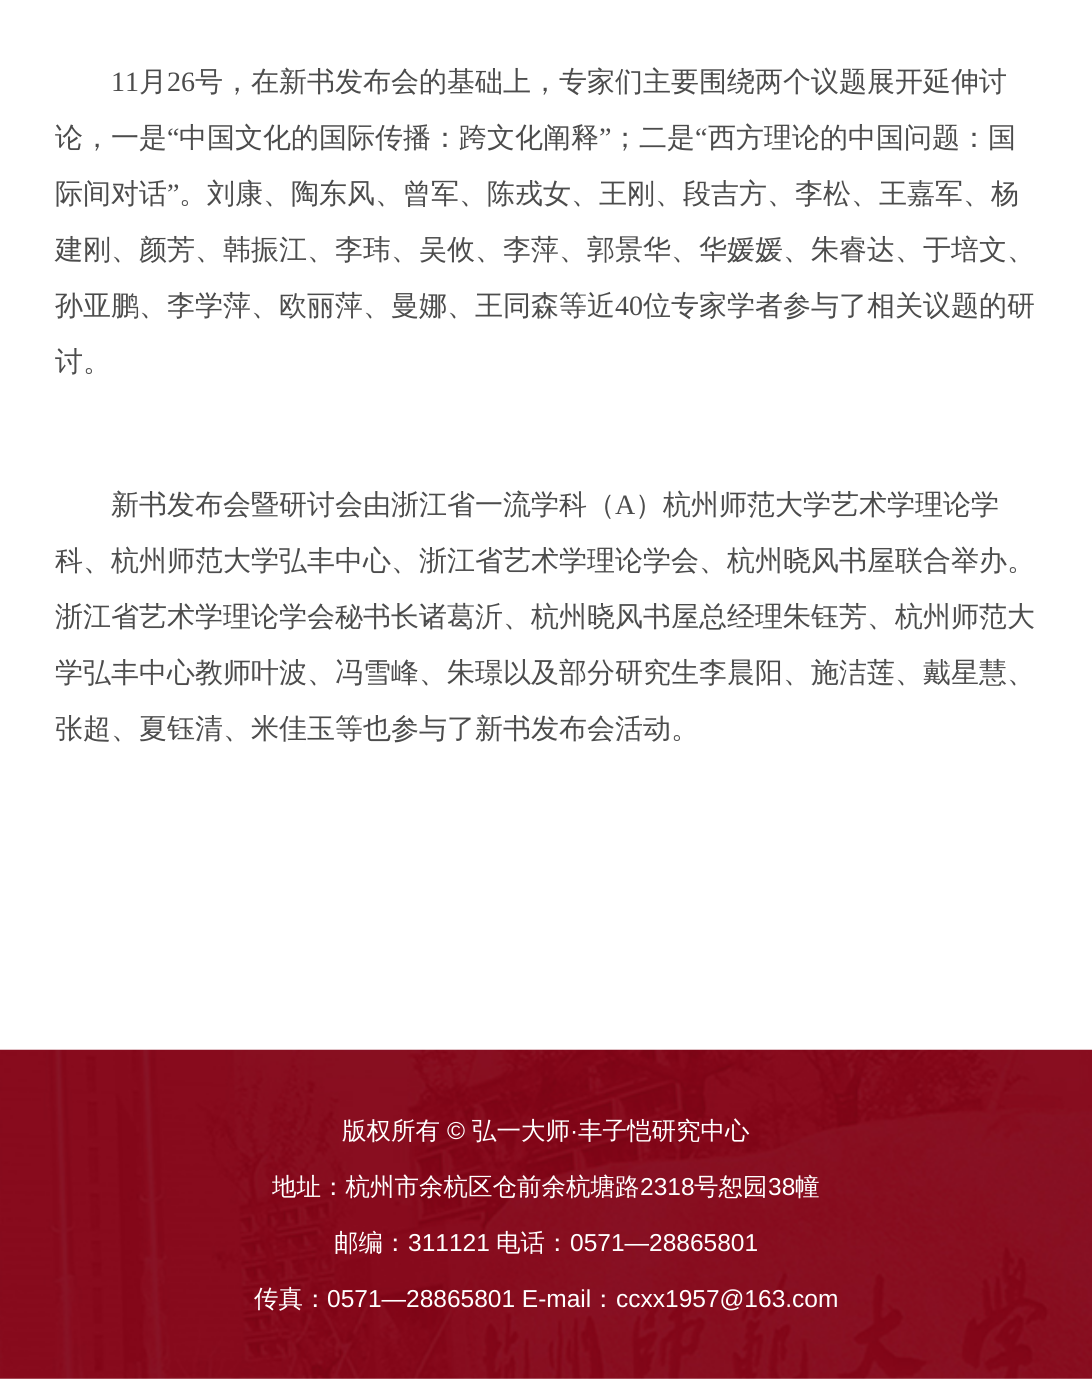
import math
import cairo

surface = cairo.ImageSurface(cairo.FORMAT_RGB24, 1092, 1379)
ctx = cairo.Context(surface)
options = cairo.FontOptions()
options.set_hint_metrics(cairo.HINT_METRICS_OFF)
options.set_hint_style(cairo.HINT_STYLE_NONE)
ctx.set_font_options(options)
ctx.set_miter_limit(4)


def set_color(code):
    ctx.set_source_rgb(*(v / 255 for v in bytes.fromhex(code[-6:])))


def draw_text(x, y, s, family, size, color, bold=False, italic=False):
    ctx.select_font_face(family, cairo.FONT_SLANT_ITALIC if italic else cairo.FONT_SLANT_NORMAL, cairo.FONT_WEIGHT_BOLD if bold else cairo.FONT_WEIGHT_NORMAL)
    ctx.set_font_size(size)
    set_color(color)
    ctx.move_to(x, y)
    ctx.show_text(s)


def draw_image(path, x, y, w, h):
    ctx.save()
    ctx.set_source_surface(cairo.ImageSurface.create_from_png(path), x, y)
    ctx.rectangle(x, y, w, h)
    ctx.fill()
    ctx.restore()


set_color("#ffffff")
ctx.paint()
draw_text(111, 91, "11", "Liberation Serif", 28, "#4c4c4c")
draw_text(139, 91, "月", "WenQuanYi Zen Hei Medium", 28, "#4c4c4c")
draw_text(167, 91, "26", "Liberation Serif", 28, "#4c4c4c")
draw_text(195, 91, "号，在新书发布会的基础上，专家们主要围绕两个议题展开延伸讨", "WenQuanYi Zen Hei Medium", 28, "#4c4c4c")
draw_text(55, 147, "论，一是", "WenQuanYi Zen Hei Medium", 28, "#4c4c4c")
draw_text(167, 147, "“", "Liberation Serif", 28, "#4c4c4c")
draw_text(179, 147, "中国文化的国际传播：跨文化阐释", "WenQuanYi Zen Hei Medium", 28, "#4c4c4c")
draw_text(599, 147, "”", "Liberation Serif", 28, "#4c4c4c")
draw_text(611, 147, "；二是", "WenQuanYi Zen Hei Medium", 28, "#4c4c4c")
draw_text(695, 147, "“", "Liberation Serif", 28, "#4c4c4c")
draw_text(708, 147, "西方理论的中国问题：国", "WenQuanYi Zen Hei Medium", 28, "#4c4c4c")
draw_text(55, 203, "际间对话", "WenQuanYi Zen Hei Medium", 28, "#4c4c4c")
draw_text(167, 203, "”", "Liberation Serif", 28, "#4c4c4c")
draw_text(179, 203, "。刘康、陶东风、曾军、陈戎女、王刚、段吉方、李松、王嘉军、杨", "WenQuanYi Zen Hei Medium", 28, "#4c4c4c")
draw_text(55, 259, "建刚、颜芳、韩振江、李玮、吴攸、李萍、郭景华、华媛媛、朱睿达、于培文、", "WenQuanYi Zen Hei Medium", 28, "#4c4c4c")
draw_text(55, 315, "孙亚鹏、李学萍、欧丽萍、曼娜、王同森等近", "WenQuanYi Zen Hei Medium", 28, "#4c4c4c")
draw_text(615, 315, "40", "Liberation Serif", 28, "#4c4c4c")
draw_text(643, 315, "位专家学者参与了相关议题的研", "WenQuanYi Zen Hei Medium", 28, "#4c4c4c")
draw_text(55, 371, "讨。", "WenQuanYi Zen Hei Medium", 28, "#4c4c4c")
draw_text(111, 514, "新书发布会暨研讨会由浙江省一流学科（", "WenQuanYi Zen Hei Medium", 28, "#4c4c4c")
draw_text(615, 514, "A", "Liberation Serif", 28, "#4c4c4c")
draw_text(635, 514, "）杭州师范大学艺术学理论学", "WenQuanYi Zen Hei Medium", 28, "#4c4c4c")
draw_text(55, 570, "科、杭州师范大学弘丰中心、浙江省艺术学理论学会、杭州晓风书屋联合举办。", "WenQuanYi Zen Hei Medium", 28, "#4c4c4c")
draw_text(55, 626, "浙江省艺术学理论学会秘书长诸葛沂、杭州晓风书屋总经理朱钰芳、杭州师范大", "WenQuanYi Zen Hei Medium", 28, "#4c4c4c")
draw_text(55, 682, "学弘丰中心教师叶波、冯雪峰、朱璟以及部分研究生李晨阳、施洁莲、戴星慧、", "WenQuanYi Zen Hei Medium", 28, "#4c4c4c")
draw_text(55, 738, "张超、夏钰清、米佳玉等也参与了新书发布会活动。", "WenQuanYi Zen Hei Medium", 28, "#4c4c4c")
draw_image("assets/img1.png", 0, 1049, 1092, 330)
draw_text(342, 1139, "版权所有", "WenQuanYi Zen Hei Medium", 24.5, "#ffffff")
draw_text(447, 1139, "©", "Liberation Sans", 24.5, "#ffffff")
draw_text(472, 1139, "弘一大师", "WenQuanYi Zen Hei Medium", 24.5, "#ffffff")
draw_text(570, 1139, "·", "Liberation Sans", 24.5, "#ffffff")
draw_text(578, 1139, "丰子恺研究中心", "WenQuanYi Zen Hei Medium", 24.5, "#ffffff")
draw_text(272, 1195, "地址：杭州市余杭区仓前余杭塘路", "WenQuanYi Zen Hei Medium", 24.5, "#ffffff")
draw_text(640, 1195, "2318", "Liberation Sans", 24.5, "#ffffff")
draw_text(694, 1195, "号恕园", "WenQuanYi Zen Hei Medium", 24.5, "#ffffff")
draw_text(768, 1195, "38", "Liberation Sans", 24.5, "#ffffff")
draw_text(795, 1195, "幢", "WenQuanYi Zen Hei Medium", 24.5, "#ffffff")
draw_text(334, 1251, "邮编：", "WenQuanYi Zen Hei Medium", 24.5, "#ffffff")
draw_text(408, 1251, "311121", "Liberation Sans", 24.5, "#ffffff")
draw_text(496, 1251, "电话：", "WenQuanYi Zen Hei Medium", 24.5, "#ffffff")
draw_text(570, 1251, "0571—28865801", "Liberation Sans", 24.5, "#ffffff")
draw_text(254, 1307, "传真：", "WenQuanYi Zen Hei Medium", 24.5, "#ffffff")
draw_text(327, 1307, "0571—28865801 E-mail", "Liberation Sans", 24.5, "#ffffff")
draw_text(591, 1307, "：", "WenQuanYi Zen Hei Medium", 24.5, "#ffffff")
draw_text(616, 1307, "ccxx1957@163.com", "Liberation Sans", 24.5, "#ffffff")
surface.write_to_png("output.png")
